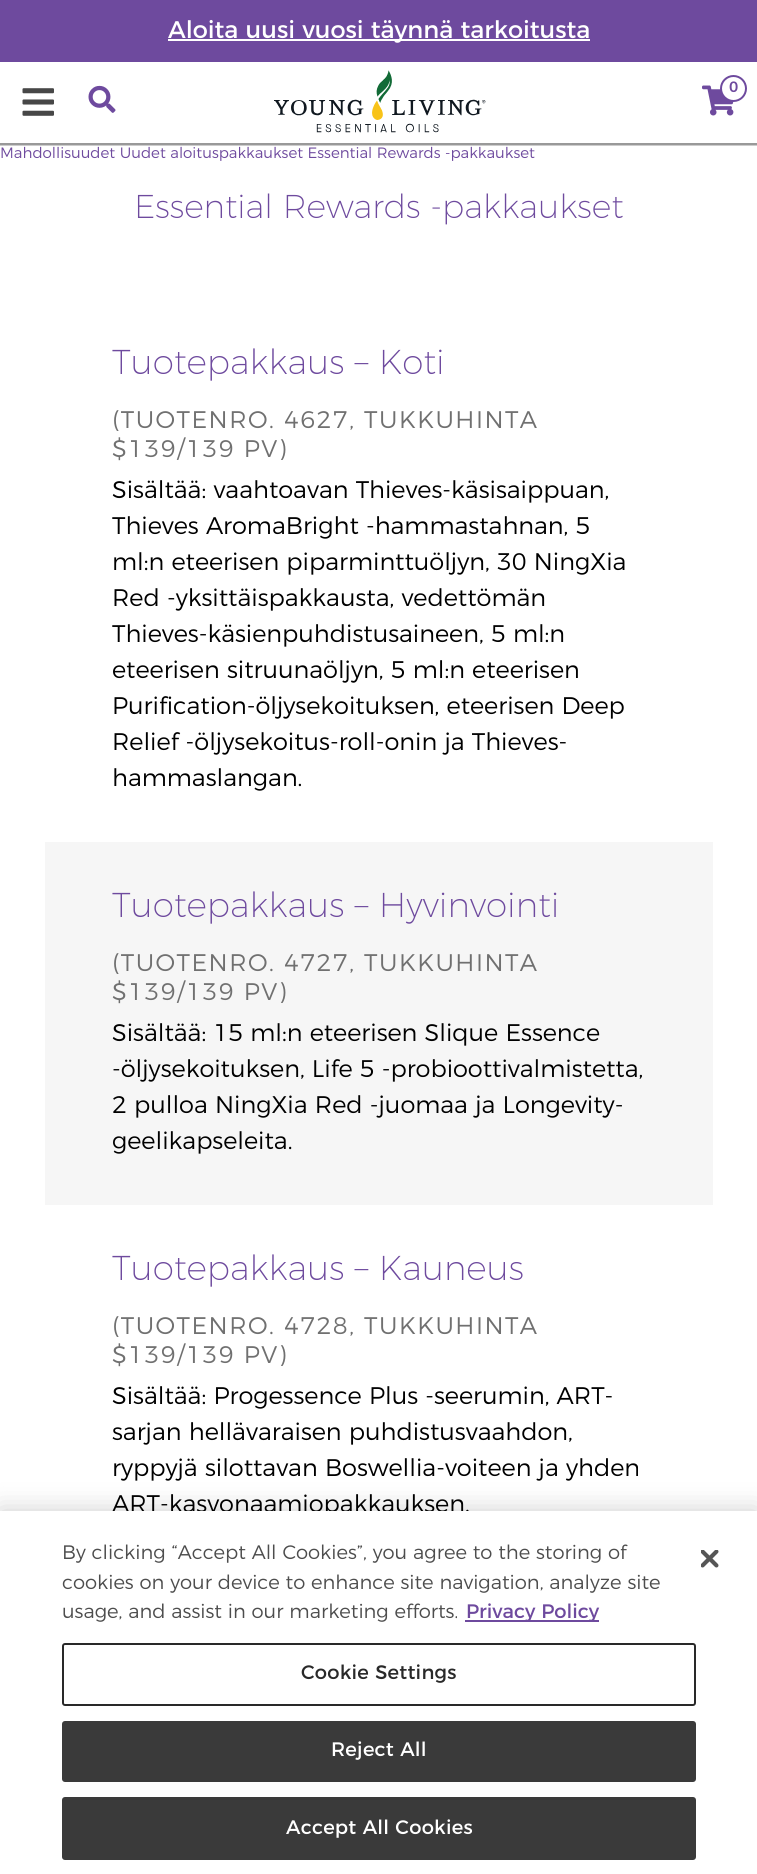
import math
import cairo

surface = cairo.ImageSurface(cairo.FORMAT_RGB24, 757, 1874)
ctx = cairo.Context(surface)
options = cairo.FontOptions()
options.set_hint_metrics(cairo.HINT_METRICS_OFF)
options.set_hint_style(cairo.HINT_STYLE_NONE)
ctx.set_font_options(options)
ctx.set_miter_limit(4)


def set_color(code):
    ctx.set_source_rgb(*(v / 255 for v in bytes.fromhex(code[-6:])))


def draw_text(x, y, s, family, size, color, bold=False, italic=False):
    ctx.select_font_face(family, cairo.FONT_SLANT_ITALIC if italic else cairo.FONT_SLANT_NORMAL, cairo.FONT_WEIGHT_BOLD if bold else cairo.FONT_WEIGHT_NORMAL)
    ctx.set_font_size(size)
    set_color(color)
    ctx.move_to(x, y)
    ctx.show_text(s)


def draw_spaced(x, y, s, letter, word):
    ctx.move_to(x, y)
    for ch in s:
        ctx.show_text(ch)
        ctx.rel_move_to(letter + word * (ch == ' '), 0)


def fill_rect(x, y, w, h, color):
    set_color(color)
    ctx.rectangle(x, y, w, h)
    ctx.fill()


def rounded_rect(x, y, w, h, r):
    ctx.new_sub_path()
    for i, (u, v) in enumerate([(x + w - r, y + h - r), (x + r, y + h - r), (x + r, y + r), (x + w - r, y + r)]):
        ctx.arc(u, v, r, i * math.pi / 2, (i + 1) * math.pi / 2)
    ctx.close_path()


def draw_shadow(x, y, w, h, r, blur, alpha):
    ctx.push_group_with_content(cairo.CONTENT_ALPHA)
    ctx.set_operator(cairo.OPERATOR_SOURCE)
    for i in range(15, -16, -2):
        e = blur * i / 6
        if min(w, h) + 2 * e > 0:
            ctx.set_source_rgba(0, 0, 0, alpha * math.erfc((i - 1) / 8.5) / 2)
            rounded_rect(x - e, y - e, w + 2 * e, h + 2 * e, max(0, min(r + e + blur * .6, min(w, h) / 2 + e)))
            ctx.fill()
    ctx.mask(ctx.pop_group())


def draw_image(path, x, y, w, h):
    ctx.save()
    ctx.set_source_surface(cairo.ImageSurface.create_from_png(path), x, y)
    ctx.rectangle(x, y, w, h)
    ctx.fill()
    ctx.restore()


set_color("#ffffff")
ctx.paint()
fill_rect(0, 0, 757, 62, "#6e4a9e")
fill_rect(168, 39, 422, 2, "#ffffff")
draw_text(168, 38, "Aloita uusi vuosi täynnä tarkoitusta", "Montserrat", 24, "#ffffff")
fill_rect(0, 143, 757, 2, "#999999")
draw_image("assets/img1.png", 22, 88, 32, 28)
draw_image("assets/img2.png", 88, 85, 28, 28)
draw_image("assets/img3.png", 274, 70, 212, 63)
draw_image("assets/img4.png", 702, 85, 32, 31)
set_color("#ffffff")
ctx.arc(733.5, 88.5, 12.5, 0, 2 * math.pi)
ctx.fill_preserve()
set_color("#6e4a9e")
ctx.stroke()
draw_text(729, 92, "0", "Montserrat Medium", 15, "#6e4a9e")
fill_rect(0, 145, 757, 1, "#cccccc")
draw_text(0, 158, "Mahdollisuudet Uudet aloituspakkaukset Essential Rewards -pakkaukset", "Montserrat Light", 15, "#6e4a9e")
draw_text(134, 218, "Essential Rewards -pakkaukset", "Montserrat ExtraLight", 33, "#6e4a9e")
draw_text(112, 374, "Tuotepakkaus – Koti", "Montserrat ExtraLight", 34.5, "#6e4a9e")
ctx.select_font_face("Montserrat Light")
ctx.set_font_size(24)
set_color("#707070")
draw_spaced(112, 428, "(TUOTENRO. 4627, TUKKUHINTA", 1.5, 0)
draw_spaced(112, 457, "$139/139 PV)", 1.5, 0)
draw_text(112, 498, "Sisältää: vaahtoavan Thieves-käsisaippuan,", "Montserrat Light", 24, "#000000")
draw_text(112, 534, "Thieves AromaBright -hammastahnan, 5", "Montserrat Light", 24, "#000000")
draw_text(112, 570, "ml:n eteerisen piparminttuöljyn, 30 NingXia", "Montserrat Light", 24, "#000000")
draw_text(112, 606, "Red -yksittäispakkausta, vedettömän", "Montserrat Light", 24, "#000000")
draw_text(112, 642, "Thieves-käsienpuhdistusaineen, 5 ml:n", "Montserrat Light", 24, "#000000")
draw_text(112, 678, "eteerisen sitruunaöljyn, 5 ml:n eteerisen", "Montserrat Light", 24, "#000000")
draw_text(112, 714, "Purification-öljysekoituksen, eteerisen Deep", "Montserrat Light", 24, "#000000")
draw_text(112, 750, "Relief -öljysekoitus-roll-onin ja Thieves-", "Montserrat Light", 24, "#000000")
draw_text(112, 786, "hammaslangan.", "Montserrat Light", 24, "#000000")
fill_rect(45, 842, 668, 363, "#f6f6f6")
draw_text(112, 917, "Tuotepakkaus – Hyvinvointi", "Montserrat ExtraLight", 34.5, "#6e4a9e")
ctx.select_font_face("Montserrat Light")
ctx.set_font_size(24)
set_color("#707070")
draw_spaced(112, 971, "(TUOTENRO. 4727, TUKKUHINTA", 1.5, 0)
draw_spaced(112, 1000, "$139/139 PV)", 1.5, 0)
draw_text(112, 1041, "Sisältää: 15 ml:n eteerisen Slique Essence", "Montserrat Light", 24, "#000000")
draw_text(112, 1077, "-öljysekoituksen, Life 5 -probioottivalmistetta,", "Montserrat Light", 24, "#000000")
draw_text(112, 1113, "2 pulloa NingXia Red -juomaa ja Longevity-", "Montserrat Light", 24, "#000000")
draw_text(112, 1149, "geelikapseleita.", "Montserrat Light", 24, "#000000")
draw_text(112, 1280, "Tuotepakkaus – Kauneus", "Montserrat ExtraLight", 34.5, "#6e4a9e")
ctx.select_font_face("Montserrat Light")
ctx.set_font_size(24)
set_color("#707070")
draw_spaced(112, 1334, "(TUOTENRO. 4728, TUKKUHINTA", 1.5, 0)
draw_spaced(112, 1363, "$139/139 PV)", 1.5, 0)
draw_text(112, 1404, "Sisältää: Progessence Plus -seerumin, ART-", "Montserrat Light", 24, "#000000")
draw_text(112, 1440, "sarjan hellävaraisen puhdistusvaahdon,", "Montserrat Light", 24, "#000000")
draw_text(112, 1476, "ryppyjä silottavan Boswellia-voiteen ja yhden", "Montserrat Light", 24, "#000000")
draw_text(112, 1512, "ART-kasvonaamiopakkauksen.", "Montserrat Light", 24, "#000000")
set_color("#000000")
draw_shadow(0, 1511, 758, 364, 0, 13.5, 0.2)
fill_rect(0, 1511, 757, 363, "#ffffff")
draw_text(62, 1559, "By clicking “Accept All Cookies”, you agree to the storing of", "Montserrat Light", 19.5, "#4d4d4d")
draw_text(62, 1589, "cookies on your device to enhance site navigation, analyze site", "Montserrat Light", 19.5, "#4d4d4d")
draw_text(62, 1618, "usage, and assist in our marketing efforts.", "Montserrat Light", 19.5, "#4d4d4d")
fill_rect(465, 1620, 134, 2, "#6e4a9e")
draw_text(466, 1618, "Privacy Policy", "Montserrat", 19.5, "#6e4a9e")
rounded_rect(63, 1644, 632, 61, 2)
set_color("#292929")
ctx.stroke()
draw_spaced(301, 1679, "Cookie Settings", 0.25, 0)
set_color("#3a3a3a")
rounded_rect(63, 1722, 632, 59, 2)
ctx.fill_preserve()
ctx.stroke()
set_color("#ffffff")
draw_spaced(331, 1756, "Reject All", 0.25, 0)
set_color("#3a3a3a")
rounded_rect(63, 1798, 632, 61, 2)
ctx.fill_preserve()
ctx.stroke()
set_color("#ffffff")
draw_spaced(286, 1834, "Accept All Cookies", 0.25, 0)
draw_image("assets/img5.png", 701, 1550, 18, 18)
surface.write_to_png("output.png")
